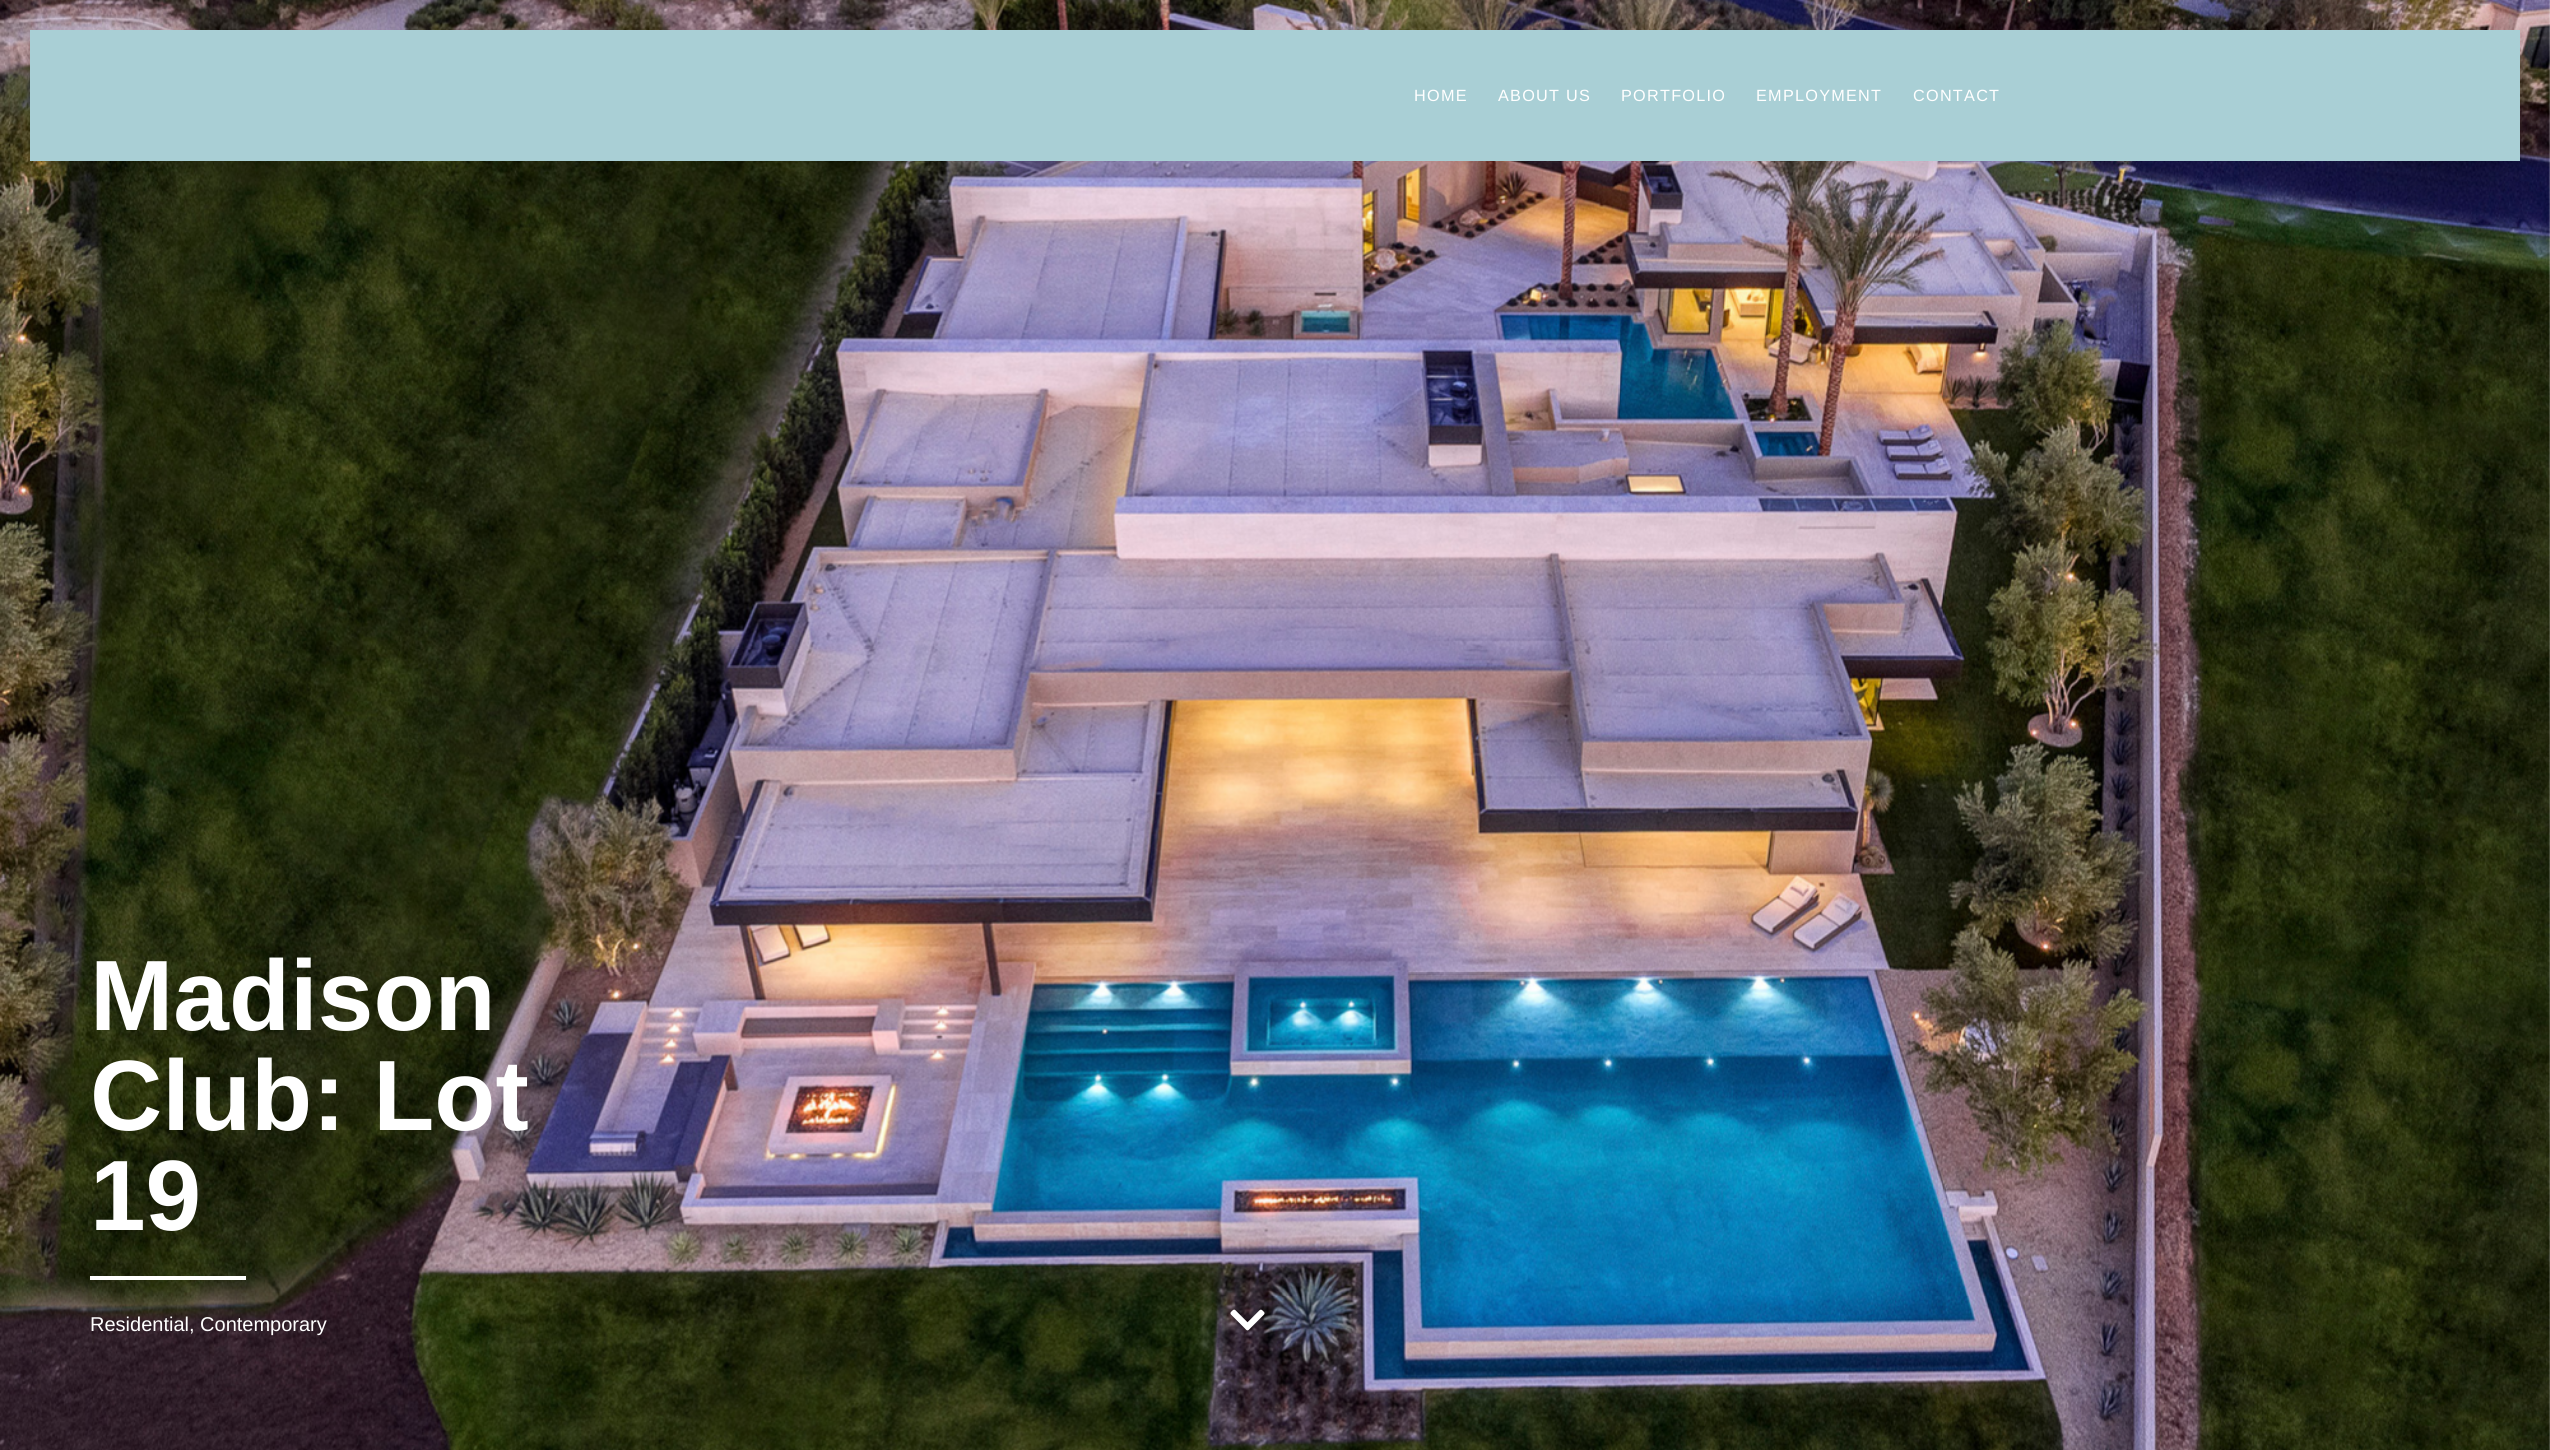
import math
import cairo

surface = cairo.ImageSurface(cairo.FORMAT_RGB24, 2550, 1450)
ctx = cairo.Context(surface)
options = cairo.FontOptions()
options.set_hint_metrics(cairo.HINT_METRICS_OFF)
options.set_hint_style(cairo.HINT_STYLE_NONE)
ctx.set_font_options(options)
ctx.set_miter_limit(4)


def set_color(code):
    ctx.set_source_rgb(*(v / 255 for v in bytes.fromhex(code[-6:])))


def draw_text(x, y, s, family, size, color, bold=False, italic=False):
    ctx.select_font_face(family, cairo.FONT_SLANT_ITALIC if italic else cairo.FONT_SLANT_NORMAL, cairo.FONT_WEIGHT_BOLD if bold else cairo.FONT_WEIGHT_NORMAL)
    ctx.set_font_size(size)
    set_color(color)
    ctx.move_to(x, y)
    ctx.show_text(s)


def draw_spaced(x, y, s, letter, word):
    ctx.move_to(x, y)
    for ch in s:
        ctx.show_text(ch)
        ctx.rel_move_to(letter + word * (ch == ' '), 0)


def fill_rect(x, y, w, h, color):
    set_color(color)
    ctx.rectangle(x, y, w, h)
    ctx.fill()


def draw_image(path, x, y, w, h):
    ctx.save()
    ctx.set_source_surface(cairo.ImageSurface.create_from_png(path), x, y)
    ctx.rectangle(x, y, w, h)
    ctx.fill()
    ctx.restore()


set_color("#ffffff")
ctx.paint()
draw_image("assets/img1.png", 0, 0, 2550, 1450)
fill_rect(30, 30, 2490, 131, "#a9cfd5")
ctx.select_font_face("Liberation Sans")
ctx.set_font_size(16.25)
set_color("#ffffff")
draw_spaced(1414, 101, "HOME", 1.25, 0)
draw_spaced(1498, 101, "ABOUT US", 1.25, 0)
draw_spaced(1621, 101, "PORTFOLIO", 1.25, 0)
draw_spaced(1756, 101, "EMPLOYMENT", 1.25, 0)
draw_spaced(1913, 101, "CONTACT", 1.25, 0)
draw_text(90, 1030, "Madison", "Liberation Sans", 100, "#ffffff", bold=True)
draw_text(90, 1130, "Club: Lot", "Liberation Sans", 100, "#ffffff", bold=True)
draw_text(90, 1230, "19", "Liberation Sans", 100, "#ffffff", bold=True)
fill_rect(90, 1276, 156, 4, "#ffffff")
draw_text(90, 1331, "Residential, Contemporary", "Liberation Sans", 20, "#ffffff")
draw_image("assets/img2.png", 1230, 1309, 35, 22)
surface.write_to_png("output.png")
